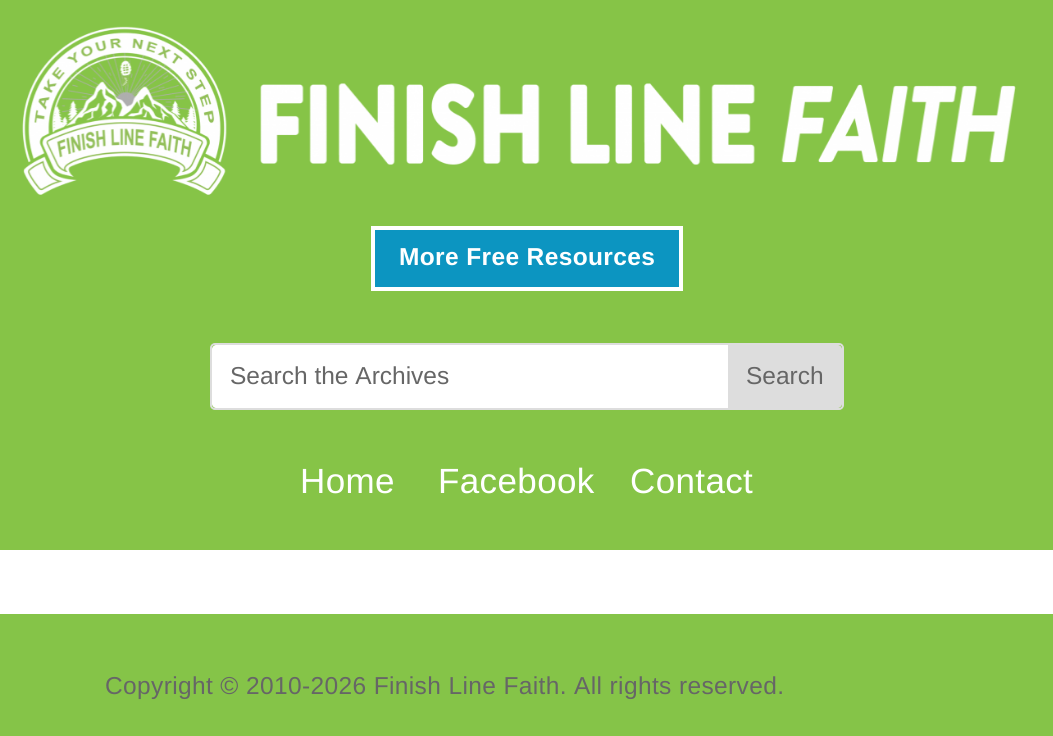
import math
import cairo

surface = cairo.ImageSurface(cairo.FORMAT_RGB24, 1053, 736)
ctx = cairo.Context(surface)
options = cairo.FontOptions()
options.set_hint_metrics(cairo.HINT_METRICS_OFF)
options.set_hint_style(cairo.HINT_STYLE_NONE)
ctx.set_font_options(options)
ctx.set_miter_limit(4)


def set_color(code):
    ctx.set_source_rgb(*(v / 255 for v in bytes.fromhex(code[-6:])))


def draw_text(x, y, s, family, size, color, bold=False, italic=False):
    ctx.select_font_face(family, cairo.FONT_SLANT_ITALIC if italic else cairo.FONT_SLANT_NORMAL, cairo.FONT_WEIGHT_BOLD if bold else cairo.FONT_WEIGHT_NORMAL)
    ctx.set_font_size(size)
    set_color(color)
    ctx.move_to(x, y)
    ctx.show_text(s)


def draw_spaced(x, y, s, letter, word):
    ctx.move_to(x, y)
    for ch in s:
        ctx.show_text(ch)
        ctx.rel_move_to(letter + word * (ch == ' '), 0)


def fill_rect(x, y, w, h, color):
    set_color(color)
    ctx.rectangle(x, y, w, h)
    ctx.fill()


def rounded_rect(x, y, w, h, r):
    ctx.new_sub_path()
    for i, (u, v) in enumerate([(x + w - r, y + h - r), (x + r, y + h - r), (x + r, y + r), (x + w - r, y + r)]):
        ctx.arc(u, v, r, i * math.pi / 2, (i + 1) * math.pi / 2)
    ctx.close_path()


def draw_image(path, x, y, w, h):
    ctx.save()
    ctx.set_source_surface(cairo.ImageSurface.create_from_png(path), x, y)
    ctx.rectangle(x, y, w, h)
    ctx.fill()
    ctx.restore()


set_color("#ffffff")
ctx.paint()
fill_rect(0, 0, 1053, 550, "#86c447")
draw_image("assets/img1.png", 22, 26, 994, 169)
set_color("#0c95c1")
ctx.rectangle(373, 228, 308, 61)
ctx.fill_preserve()
set_color("#ffffff")
ctx.set_line_width(4)
ctx.stroke()
ctx.select_font_face("Liberation Sans", cairo.FONT_SLANT_NORMAL, cairo.FONT_WEIGHT_BOLD)
ctx.set_font_size(24.5)
draw_spaced(399, 265, "More Free Resources", 0.37, 0)
rounded_rect(211, 344, 632, 65, 4)
set_color("#dddddd")
ctx.set_line_width(2)
ctx.stroke()
set_color("#ffffff")
ctx.new_path()
ctx.move_to(216, 345)
ctx.line_to(728, 345)
ctx.line_to(728, 408)
ctx.line_to(216, 408)
ctx.curve_to(214, 408, 212, 406, 212, 404)
ctx.line_to(212, 349)
ctx.curve_to(212, 347, 214, 345, 216, 345)
ctx.close_path()
ctx.fill()
draw_text(230, 384, "Search the Archives", "Liberation Sans", 24.5, "#666666")
set_color("#dddddd")
ctx.new_path()
ctx.move_to(728, 345)
ctx.line_to(838, 345)
ctx.curve_to(840, 345, 842, 347, 842, 349)
ctx.line_to(842, 404)
ctx.curve_to(842, 406, 840, 408, 838, 408)
ctx.line_to(728, 408)
ctx.close_path()
ctx.fill()
draw_text(746, 384, "Search", "Liberation Sans", 24.5, "#666666")
ctx.set_font_size(35)
set_color("#ffffff")
draw_spaced(300, 493, "Home", 0.37, 0)
draw_spaced(438, 493, "Facebook", 0.37, 0)
draw_spaced(630, 493, "Contact", 0.37, 0)
fill_rect(0, 614, 1053, 122, "#85c448")
ctx.set_font_size(24.5)
set_color("#666666")
draw_spaced(105, 694, "Copyright © 2010-2026 Finish Line Faith. All rights reserved.", 0.37, 0)
surface.write_to_png("output.png")
